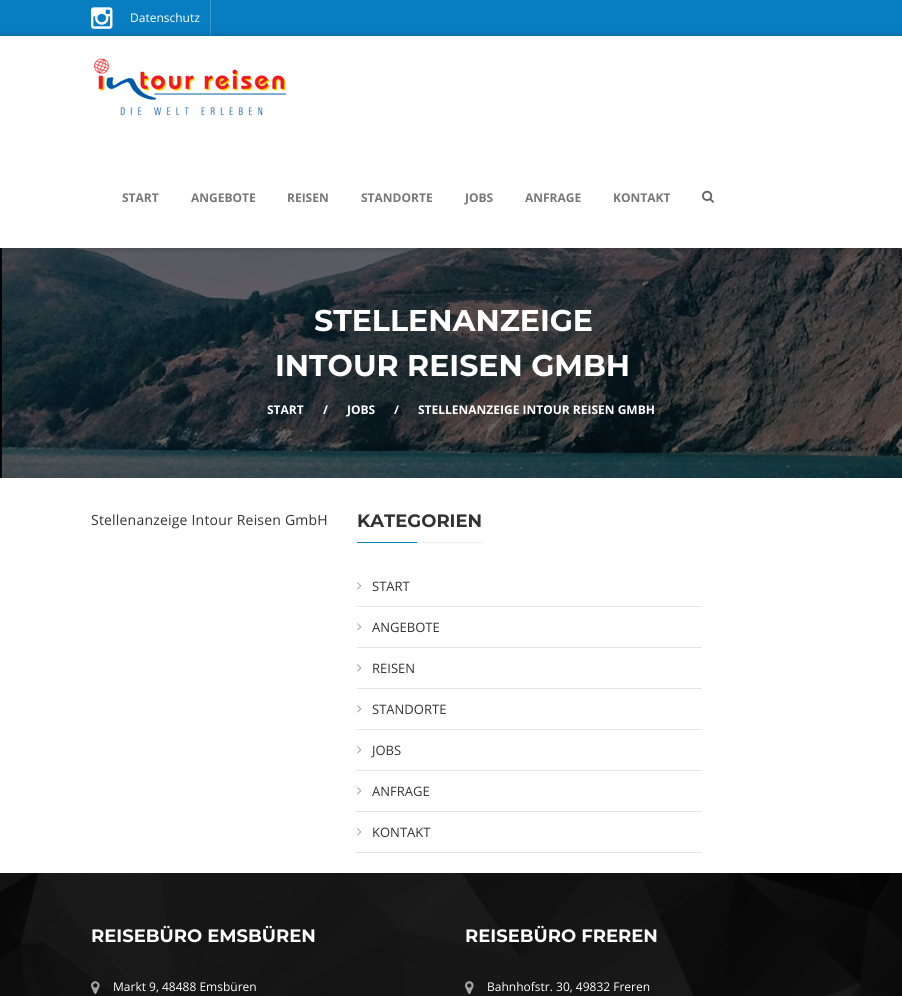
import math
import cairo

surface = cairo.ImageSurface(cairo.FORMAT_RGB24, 902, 996)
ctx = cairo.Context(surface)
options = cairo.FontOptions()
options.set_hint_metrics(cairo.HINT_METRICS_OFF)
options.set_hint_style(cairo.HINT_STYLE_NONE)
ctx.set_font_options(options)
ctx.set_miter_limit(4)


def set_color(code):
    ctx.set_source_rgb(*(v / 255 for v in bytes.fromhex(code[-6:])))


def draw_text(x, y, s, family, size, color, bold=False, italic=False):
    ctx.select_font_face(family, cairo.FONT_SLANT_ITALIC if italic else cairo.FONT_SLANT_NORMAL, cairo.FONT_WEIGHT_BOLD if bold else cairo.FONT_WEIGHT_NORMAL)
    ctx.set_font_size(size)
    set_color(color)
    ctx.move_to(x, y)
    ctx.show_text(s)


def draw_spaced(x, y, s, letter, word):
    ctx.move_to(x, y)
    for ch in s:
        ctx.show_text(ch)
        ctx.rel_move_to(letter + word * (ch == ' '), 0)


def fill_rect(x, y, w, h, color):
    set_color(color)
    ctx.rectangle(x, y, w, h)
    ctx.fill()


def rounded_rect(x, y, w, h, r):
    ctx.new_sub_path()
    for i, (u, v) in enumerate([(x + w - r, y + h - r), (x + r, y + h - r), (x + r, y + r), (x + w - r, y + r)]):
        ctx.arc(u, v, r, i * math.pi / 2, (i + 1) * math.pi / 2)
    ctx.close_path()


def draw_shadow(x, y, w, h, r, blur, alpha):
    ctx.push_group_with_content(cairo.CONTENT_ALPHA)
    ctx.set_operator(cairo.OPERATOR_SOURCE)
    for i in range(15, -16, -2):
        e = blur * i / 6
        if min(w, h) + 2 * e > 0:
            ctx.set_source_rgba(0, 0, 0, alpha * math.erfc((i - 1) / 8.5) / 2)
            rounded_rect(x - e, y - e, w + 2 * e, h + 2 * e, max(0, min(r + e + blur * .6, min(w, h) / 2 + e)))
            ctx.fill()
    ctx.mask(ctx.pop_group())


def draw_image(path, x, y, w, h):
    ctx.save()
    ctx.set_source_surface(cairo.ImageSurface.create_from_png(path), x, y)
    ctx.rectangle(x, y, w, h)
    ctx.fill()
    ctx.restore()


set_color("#ffffff")
ctx.paint()
fill_rect(0, 0, 902, 36, "#087dc2")
draw_image("assets/img1.png", 91, 7, 22, 22)
fill_rect(210, 0, 1, 36, "#3997ce")
draw_text(130, 22, "Datenschutz", "Open Sans", 12, "#ffffff")
draw_image("assets/img4.png", 0, 248, 902, 230)
ctx.save()
ctx.set_fill_rule(cairo.FILL_RULE_EVEN_ODD)
ctx.new_path()
ctx.move_to(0, 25)
ctx.line_to(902, 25)
ctx.line_to(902, 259)
ctx.line_to(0, 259)
ctx.close_path()
ctx.move_to(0, 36)
ctx.line_to(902, 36)
ctx.line_to(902, 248)
ctx.line_to(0, 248)
ctx.close_path()
ctx.clip()
set_color("#000000")
draw_shadow(-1, 35, 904, 214, 0, 3, 0.2)
ctx.restore()
draw_image("assets/img2.png", 94, 58, 193, 58)
draw_text(122, 202, "START", "Open Sans", 12, "#777777", bold=True)
draw_text(191, 202, "ANGEBOTE", "Open Sans", 12, "#777777", bold=True)
draw_text(287, 202, "REISEN", "Open Sans", 12, "#777777", bold=True)
draw_text(361, 202, "STANDORTE", "Open Sans", 12, "#777777", bold=True)
draw_text(465, 202, "JOBS", "Open Sans", 12, "#777777", bold=True)
draw_text(525, 202, "ANFRAGE", "Open Sans", 12, "#777777", bold=True)
draw_text(613, 202, "KONTAKT", "Open Sans", 12, "#777777", bold=True)
draw_image("assets/img3.png", 702, 190, 12, 13)
draw_text(314, 331, "STELLENANZEIGE", "Montserrat", 30, "#ffffff", bold=True)
draw_text(275, 376, "INTOUR REISEN GMBH", "Montserrat", 30, "#ffffff", bold=True)
draw_text(267, 414, "START", "Open Sans", 12, "#ffffff", bold=True)
draw_text(323, 414, "/", "Open Sans", 12, "#ffffff", bold=True)
draw_text(347, 414, "JOBS", "Open Sans", 12, "#ffffff", bold=True)
draw_text(394, 414, "/", "Open Sans", 12, "#ffffff", bold=True)
draw_text(418, 414, "STELLENANZEIGE INTOUR REISEN GMBH", "Open Sans", 12, "#ffffff", bold=True)
ctx.select_font_face("Open Sans")
ctx.set_font_size(14)
set_color("#333333")
draw_spaced(91, 525, "Stellenanzeige Intour Reisen GmbH", 0.2, 0)
fill_rect(417, 542, 65, 1, "#eeeeee")
draw_text(357, 527, "KATEGORIEN", "Montserrat", 18, "#333333", bold=True)
fill_rect(357, 542, 60, 1, "#087dc2")
fill_rect(357, 606, 345, 1, "#e5e5e5")
draw_image("assets/img5.png", 357, 582, 5, 8)
draw_text(372, 591, "START", "Open Sans", 13, "#333333")
fill_rect(357, 647, 345, 1, "#e5e5e5")
draw_image("assets/img5.png", 357, 623, 5, 8)
draw_text(372, 632, "ANGEBOTE", "Open Sans", 13, "#333333")
fill_rect(357, 688, 345, 1, "#e5e5e5")
draw_image("assets/img5.png", 357, 664, 5, 8)
draw_text(372, 673, "REISEN", "Open Sans", 13, "#333333")
fill_rect(357, 729, 345, 1, "#e5e5e5")
draw_image("assets/img5.png", 357, 705, 5, 8)
draw_text(372, 714, "STANDORTE", "Open Sans", 13, "#333333")
fill_rect(357, 770, 345, 1, "#e5e5e5")
draw_image("assets/img5.png", 357, 746, 5, 8)
draw_text(372, 755, "JOBS", "Open Sans", 13, "#333333")
fill_rect(357, 811, 345, 1, "#e5e5e5")
draw_image("assets/img5.png", 357, 787, 5, 8)
draw_text(372, 796, "ANFRAGE", "Open Sans", 13, "#333333")
fill_rect(357, 852, 345, 1, "#e5e5e5")
draw_image("assets/img5.png", 357, 828, 5, 8)
draw_text(372, 837, "KONTAKT", "Open Sans", 13, "#333333")
draw_image("assets/img6.png", 0, 873, 902, 123)
draw_text(91, 942, "REISEBÜRO EMSBÜREN", "Montserrat", 18, "#ffffff", bold=True)
draw_image("assets/img7.png", 91, 981, 9, 13)
draw_text(113, 991, "Markt 9, 48488 Emsbüren", "Open Sans", 12, "#ffffff")
draw_text(465, 942, "REISEBÜRO FREREN", "Montserrat", 18, "#ffffff", bold=True)
draw_image("assets/img8.png", 465, 981, 9, 13)
draw_text(487, 991, "Bahnhofstr. 30, 49832 Freren", "Open Sans", 12, "#ffffff")
surface.write_to_png("output.png")
